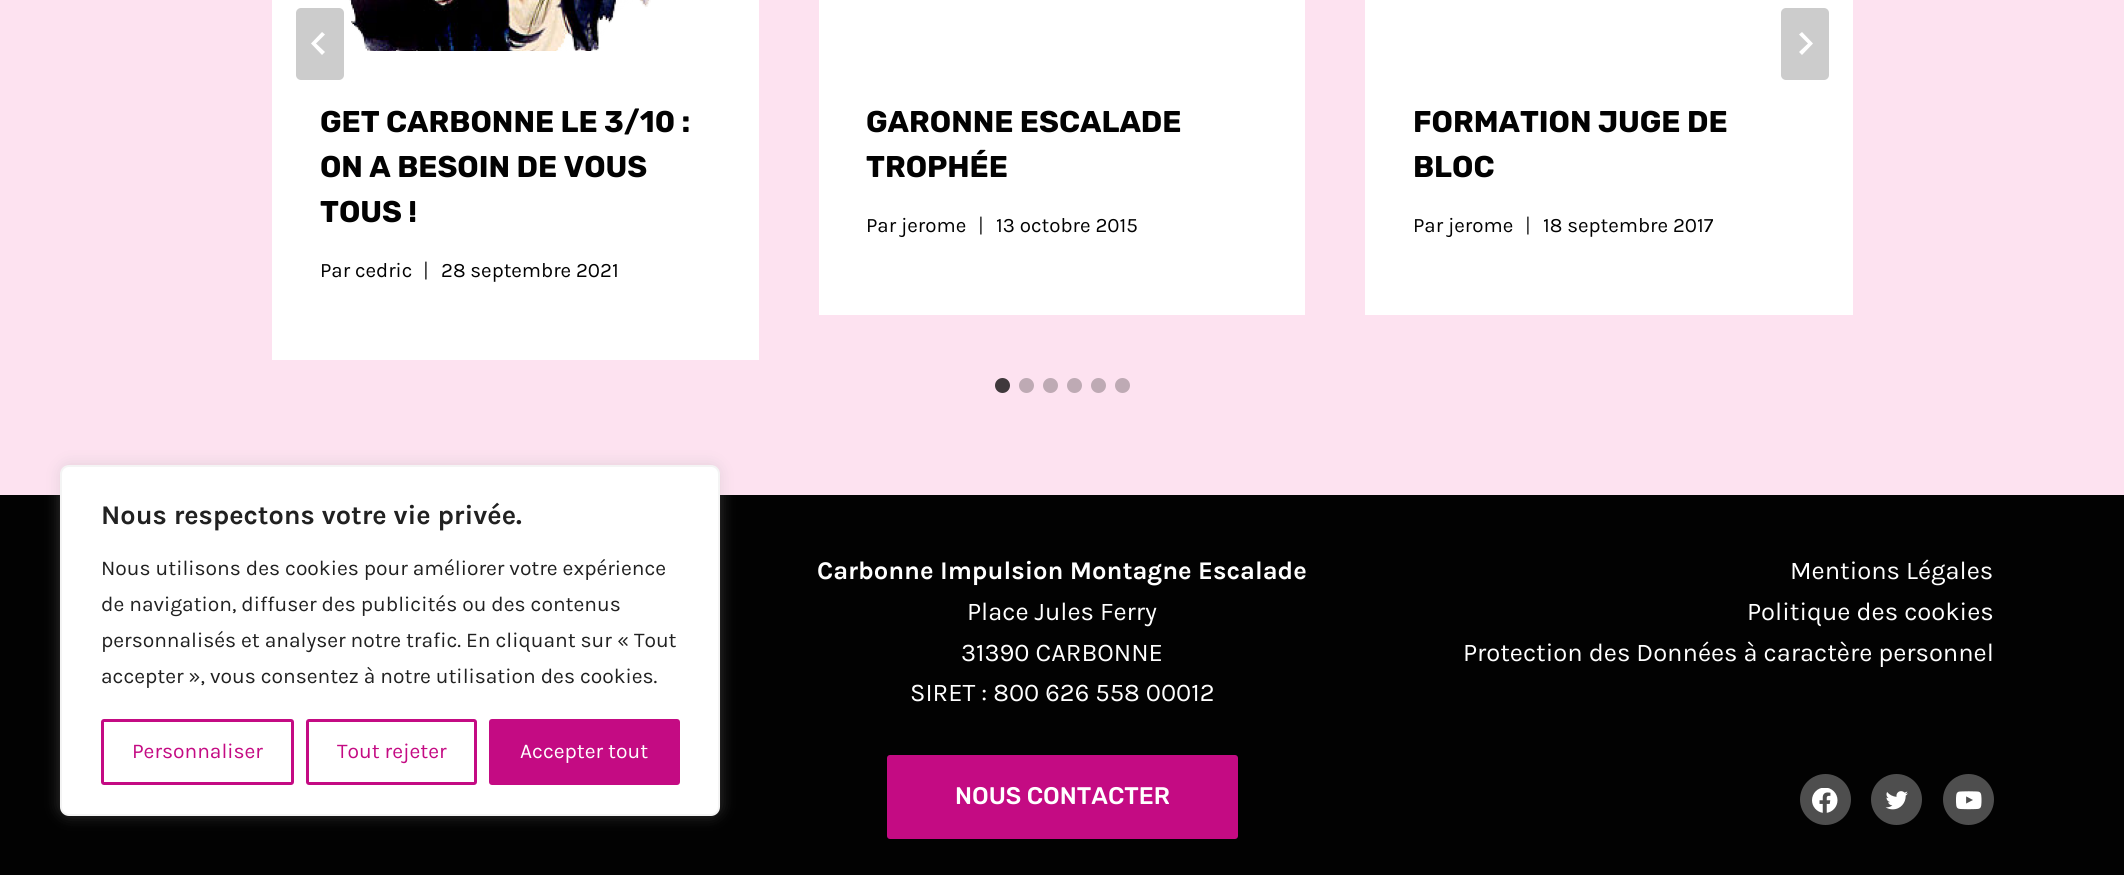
import math
import cairo

surface = cairo.ImageSurface(cairo.FORMAT_RGB24, 2124, 875)
ctx = cairo.Context(surface)
options = cairo.FontOptions()
options.set_hint_metrics(cairo.HINT_METRICS_OFF)
options.set_hint_style(cairo.HINT_STYLE_NONE)
ctx.set_font_options(options)
ctx.set_miter_limit(4)


def set_color(code):
    ctx.set_source_rgb(*(v / 255 for v in bytes.fromhex(code[-6:])))


def draw_text(x, y, s, family, size, color, bold=False, italic=False):
    ctx.select_font_face(family, cairo.FONT_SLANT_ITALIC if italic else cairo.FONT_SLANT_NORMAL, cairo.FONT_WEIGHT_BOLD if bold else cairo.FONT_WEIGHT_NORMAL)
    ctx.set_font_size(size)
    set_color(color)
    ctx.move_to(x, y)
    ctx.show_text(s)


def fill_rect(x, y, w, h, color):
    set_color(color)
    ctx.rectangle(x, y, w, h)
    ctx.fill()


def rounded_rect(x, y, w, h, r):
    ctx.new_sub_path()
    for i, (u, v) in enumerate([(x + w - r, y + h - r), (x + r, y + h - r), (x + r, y + r), (x + w - r, y + r)]):
        ctx.arc(u, v, r, i * math.pi / 2, (i + 1) * math.pi / 2)
    ctx.close_path()


def draw_shadow(x, y, w, h, r, blur, alpha):
    ctx.push_group_with_content(cairo.CONTENT_ALPHA)
    ctx.set_operator(cairo.OPERATOR_SOURCE)
    for i in range(15, -16, -2):
        e = blur * i / 6
        if min(w, h) + 2 * e > 0:
            ctx.set_source_rgba(0, 0, 0, alpha * math.erfc((i - 1) / 8.5) / 2)
            rounded_rect(x - e, y - e, w + 2 * e, h + 2 * e, max(0, min(r + e + blur * .6, min(w, h) / 2 + e)))
            ctx.fill()
    ctx.mask(ctx.pop_group())


def draw_image(path, x, y, w, h):
    ctx.save()
    ctx.set_source_surface(cairo.ImageSurface.create_from_png(path), x, y)
    ctx.rectangle(x, y, w, h)
    ctx.fill()
    ctx.restore()


set_color("#020202")
ctx.paint()
fill_rect(0, 0, 2124, 495, "#fde2f0")
fill_rect(272, 0, 487, 360, "#ffffff")
set_color("#cccccc")
rounded_rect(296, 8, 48, 72, 5)
ctx.fill()
set_color("#ffffff")
ctx.new_path()
ctx.move_to(322, 32)
ctx.line_to(325, 34.5)
ctx.line_to(316, 43.5)
ctx.line_to(325, 52)
ctx.line_to(322, 55)
ctx.line_to(311, 43.5)
ctx.close_path()
ctx.fill()
fill_rect(1365, 0, 488, 315, "#ffffff")
set_color("#cccccc")
rounded_rect(1781, 8, 48, 72, 5)
ctx.fill()
set_color("#ffffff")
ctx.new_path()
ctx.move_to(1802, 32)
ctx.line_to(1799, 34.5)
ctx.line_to(1808, 43.5)
ctx.line_to(1799, 52)
ctx.line_to(1802, 55)
ctx.line_to(1813, 43.5)
ctx.close_path()
ctx.fill()
draw_image("assets/img1.png", 349, 0, 302, 51)
draw_text(320, 132, "GET CARBONNE LE 3/10 :", "Rubik", 30, "#020202", bold=True)
draw_text(320, 177, "ON A BESOIN DE VOUS", "Rubik", 30, "#020202", bold=True)
draw_text(320, 222, "TOUS !", "Rubik", 30, "#020202", bold=True)
draw_text(320, 277, "Par cedric", "Karla", 20.5, "#020202")
draw_text(423, 277, "|", "Karla", 20.5, "#353535")
draw_text(441, 277, "28 septembre 2021", "Karla", 20.5, "#020202")
fill_rect(819, 0, 486, 315, "#ffffff")
draw_text(866, 132, "GARONNE ESCALADE", "Rubik", 30, "#020202", bold=True)
draw_text(866, 177, "TROPHÉE", "Rubik", 30, "#020202", bold=True)
draw_text(866, 232, "Par jerome", "Karla", 20.5, "#020202")
draw_text(978, 232, "|", "Karla", 20.5, "#353535")
draw_text(996, 232, "13 octobre 2015", "Karla", 20.5, "#020202")
draw_text(1413, 132, "FORMATION JUGE DE", "Rubik", 30, "#020202", bold=True)
draw_text(1413, 177, "BLOC", "Rubik", 30, "#020202", bold=True)
draw_text(1413, 232, "Par jerome", "Karla", 20.5, "#020202")
draw_text(1525, 232, "|", "Karla", 20.5, "#353535")
draw_text(1543, 232, "18 septembre 2017", "Karla", 20.5, "#020202")
set_color("#3f393c")
ctx.new_path()
ctx.arc(1002.5, 385.5, 7.5, 0, 2 * math.pi)
ctx.fill()
set_color("#beaab4")
ctx.arc(1026.5, 385.5, 7.5, 0, 2 * math.pi)
ctx.fill()
ctx.arc(1050.5, 385.5, 7.5, 0, 2 * math.pi)
ctx.fill()
ctx.arc(1074.5, 385.5, 7.5, 0, 2 * math.pi)
ctx.fill()
ctx.arc(1098.5, 385.5, 7.5, 0, 2 * math.pi)
ctx.fill()
ctx.arc(1122.5, 385.5, 7.5, 0, 2 * math.pi)
ctx.fill()
draw_text(817, 579, "Carbonne Impulsion Montagne Escalade", "Karla", 25.5, "#ffffff", bold=True)
draw_text(967, 620, "Place Jules Ferry", "Karla", 25.5, "#ffffff")
draw_text(961, 661, "31390 CARBONNE", "Karla", 25.5, "#ffffff")
draw_text(910, 701, "SIRET : 800 626 558 00012", "Karla", 25.5, "#ffffff")
draw_text(1790, 579, "Mentions Légales", "Karla", 25.5, "#ffffff")
draw_text(1747, 620, "Politique des cookies", "Karla", 25.5, "#ffffff")
draw_text(1463, 661, "Protection des Données à caractère personnel", "Karla", 25.5, "#ffffff")
set_color("#c40b83")
rounded_rect(887, 755, 351, 84, 3)
ctx.fill()
draw_text(955, 804, "NOUS CONTACTER", "Rubik Medium", 24, "#ffffff")
set_color("#4e4e4e")
ctx.new_path()
ctx.arc(1825.5, 799.5, 25.5, 0, 2 * math.pi)
ctx.fill()
draw_image("assets/img2.png", 1812, 788, 26, 25)
ctx.arc(1896.5, 799.5, 25.5, 0, 2 * math.pi)
ctx.fill()
draw_image("assets/img3.png", 1885, 791, 23, 19)
ctx.arc(1968.5, 799.5, 25.5, 0, 2 * math.pi)
ctx.fill()
draw_image("assets/img4.png", 1956, 791, 26, 19)
set_color("#acabab")
draw_shadow(60, 464, 660, 351, 9, 7.5, 0.3)
set_color("#ffffff")
rounded_rect(61, 466, 658, 349, 8)
ctx.fill_preserve()
set_color("#f4f4f4")
ctx.stroke()
draw_text(101, 524, "Nous respectons votre vie privée.", "Karla", 27, "#212121", bold=True)
draw_text(101, 575, "Nous utilisons des cookies pour améliorer votre expérience", "Karla", 21, "#212121")
draw_text(101, 611, "de navigation, diffuser des publicités ou des contenus", "Karla", 21, "#212121")
draw_text(101, 647, "personnalisés et analyser notre trafic. En cliquant sur « Tout", "Karla", 21, "#212121")
draw_text(101, 683, "accepter », vous consentez à notre utilisation des cookies.", "Karla", 21, "#212121")
rounded_rect(102.5, 720.5, 190, 63, 1.5)
set_color("#c40b83")
ctx.set_line_width(3)
ctx.stroke()
draw_text(132, 758, "Personnaliser", "Karla", 21, "#c40b83")
rounded_rect(307.5, 720.5, 168, 63, 1.5)
ctx.stroke()
draw_text(337, 758, "Tout rejeter", "Karla", 21, "#c40b83")
rounded_rect(490.5, 720.5, 188, 63, 1.5)
ctx.fill_preserve()
ctx.stroke()
draw_text(520, 758, "Accepter tout", "Karla", 21, "#ffffff")
surface.write_to_png("output.png")
